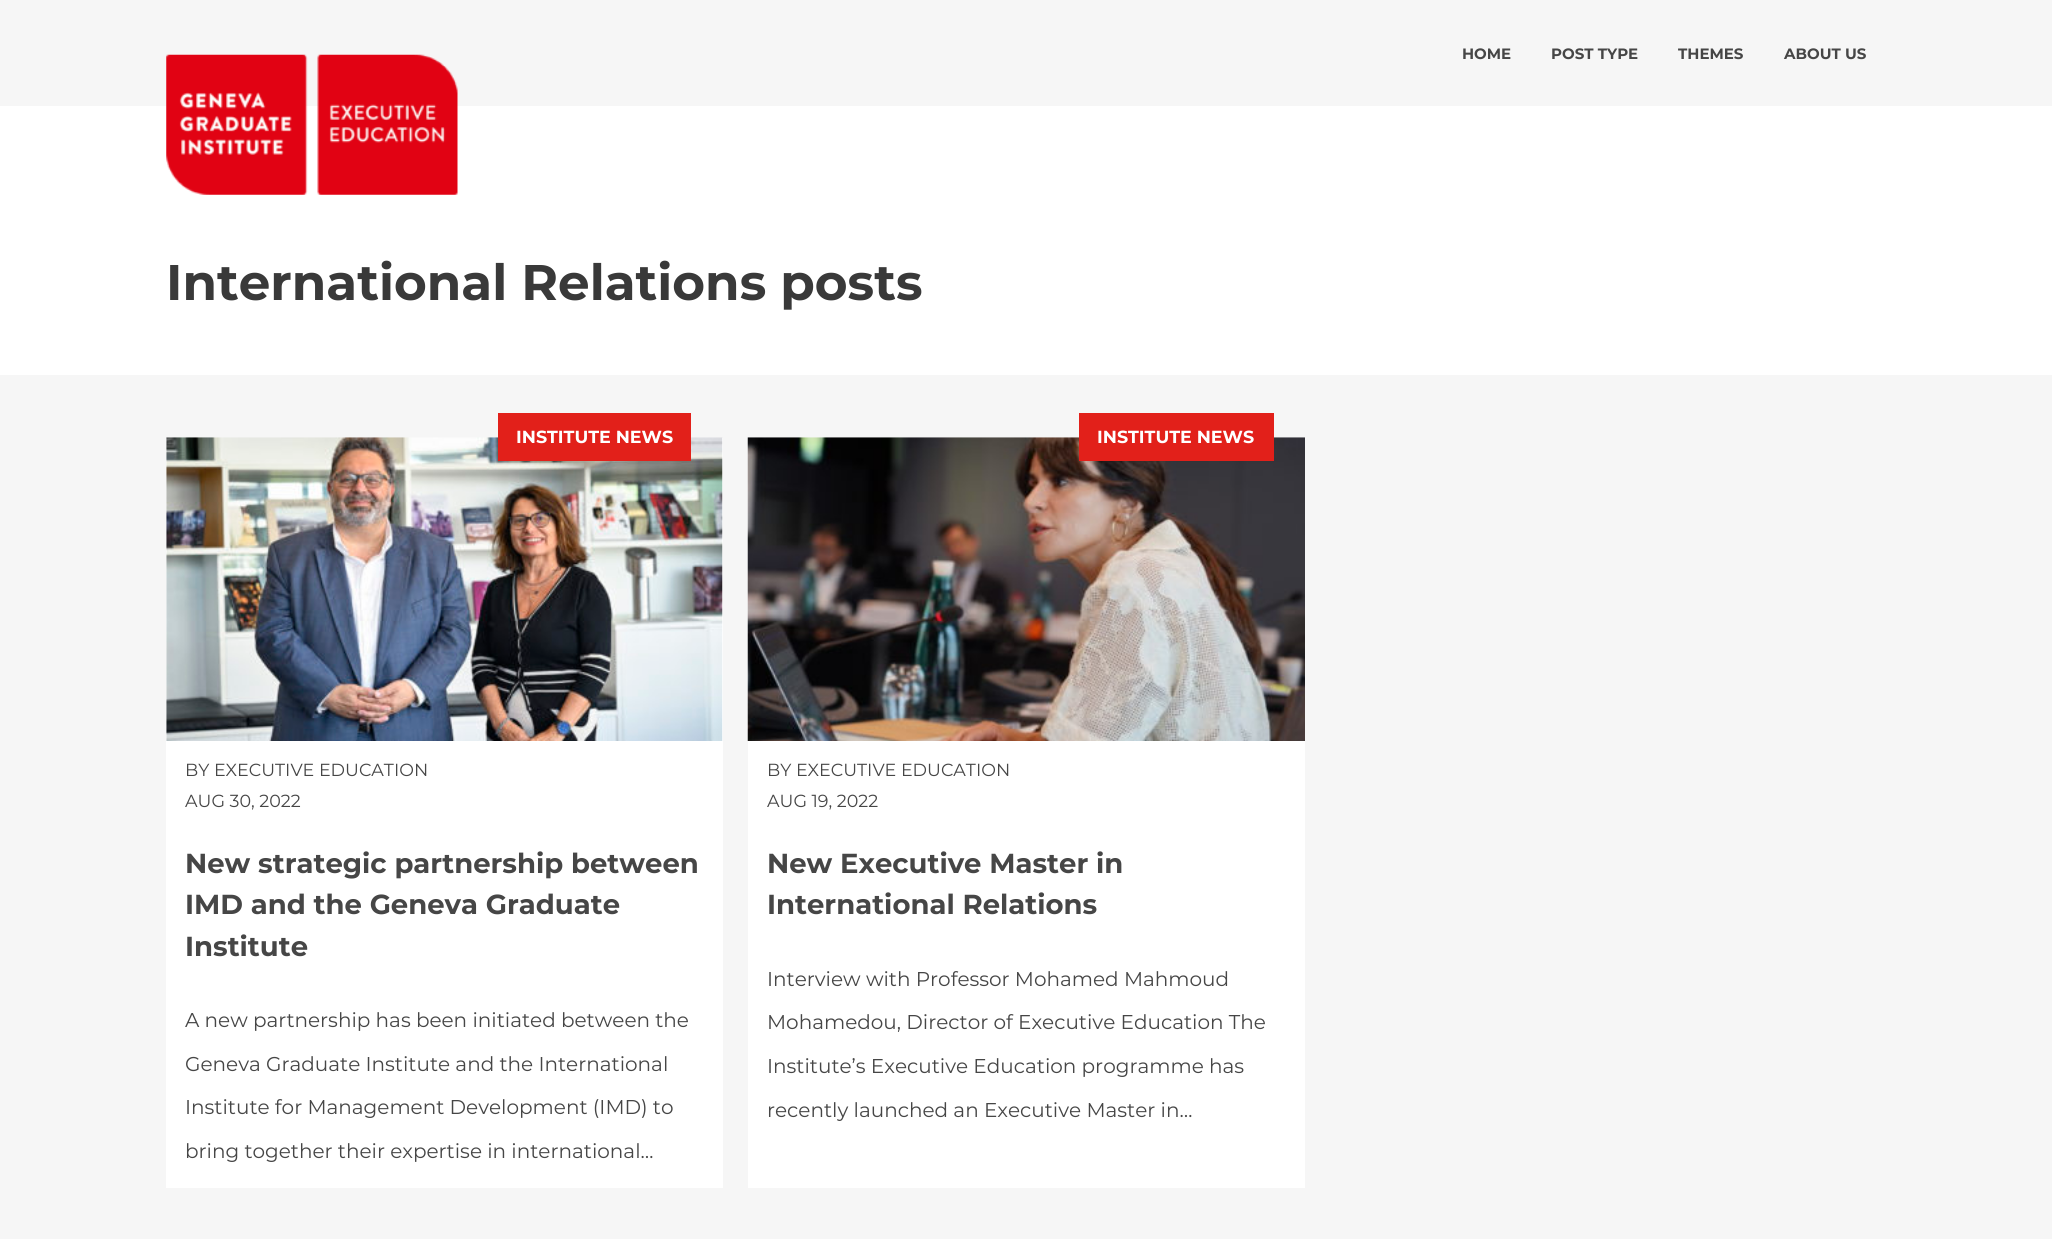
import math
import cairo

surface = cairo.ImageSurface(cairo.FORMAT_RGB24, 2052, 1239)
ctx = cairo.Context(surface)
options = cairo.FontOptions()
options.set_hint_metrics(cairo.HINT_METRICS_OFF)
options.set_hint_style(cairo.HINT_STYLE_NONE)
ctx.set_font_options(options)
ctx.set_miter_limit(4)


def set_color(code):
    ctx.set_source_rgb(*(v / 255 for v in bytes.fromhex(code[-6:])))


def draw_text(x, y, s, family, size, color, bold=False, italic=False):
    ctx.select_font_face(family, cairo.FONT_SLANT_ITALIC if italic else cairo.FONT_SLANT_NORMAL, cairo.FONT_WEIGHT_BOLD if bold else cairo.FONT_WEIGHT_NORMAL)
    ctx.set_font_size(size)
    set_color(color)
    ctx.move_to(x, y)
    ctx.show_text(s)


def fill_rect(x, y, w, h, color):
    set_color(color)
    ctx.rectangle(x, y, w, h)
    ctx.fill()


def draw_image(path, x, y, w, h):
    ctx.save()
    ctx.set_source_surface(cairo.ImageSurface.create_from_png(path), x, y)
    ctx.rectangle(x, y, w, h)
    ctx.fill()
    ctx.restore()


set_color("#ffffff")
ctx.paint()
fill_rect(0, 0, 2052, 106, "#f6f6f6")
draw_image("assets/img1.png", 166, 54, 292, 141)
draw_text(1462, 59, "HOME", "Montserrat", 15, "#464646", bold=True)
draw_text(1551, 59, "POST TYPE", "Montserrat", 15, "#464646", bold=True)
draw_text(1678, 59, "THEMES", "Montserrat", 15, "#464646", bold=True)
draw_text(1784, 59, "ABOUT US", "Montserrat", 15, "#464646", bold=True)
draw_text(166, 300, "International Relations posts", "Montserrat", 50, "#393939", bold=True)
fill_rect(0, 375, 2052, 864, "#f6f6f6")
fill_rect(166, 438, 557, 750, "#ffffff")
draw_image("assets/img2.png", 166, 437, 557, 304)
fill_rect(498, 413, 193, 48, "#e2201a")
draw_text(516, 443, "INSTITUTE NEWS", "Montserrat", 17.5, "#ffffff", bold=True)
draw_text(185, 776, "BY EXECUTIVE EDUCATION", "Montserrat", 17.5, "#464646")
draw_text(185, 807, "AUG 30, 2022", "Montserrat", 17.5, "#464646")
draw_text(185, 873, "New strategic partnership between", "Montserrat", 27.5, "#464646", bold=True)
draw_text(185, 914, "IMD and the Geneva Graduate", "Montserrat", 27.5, "#464646", bold=True)
draw_text(185, 956, "Institute", "Montserrat", 27.5, "#464646", bold=True)
draw_text(185, 1027, "A new partnership has been initiated between the", "Montserrat", 20, "#464646")
draw_text(185, 1071, "Geneva Graduate Institute and the International", "Montserrat", 20, "#464646")
draw_text(185, 1114, "Institute for Management Development (IMD) to", "Montserrat", 20, "#464646")
draw_text(185, 1158, "bring together their expertise in international…", "Montserrat", 20, "#464646")
fill_rect(748, 741, 557, 447, "#ffffff")
draw_image("assets/img3.png", 747, 437, 558, 304)
fill_rect(1079, 413, 195, 48, "#e2201a")
draw_text(1097, 443, "INSTITUTE NEWS", "Montserrat", 17.5, "#ffffff", bold=True)
draw_text(767, 776, "BY EXECUTIVE EDUCATION", "Montserrat", 17.5, "#464646")
draw_text(767, 807, "AUG 19, 2022", "Montserrat", 17.5, "#464646")
draw_text(767, 873, "New Executive Master in", "Montserrat", 27.5, "#464646", bold=True)
draw_text(767, 914, "International Relations", "Montserrat", 27.5, "#464646", bold=True)
draw_text(767, 986, "Interview with Professor Mohamed Mahmoud", "Montserrat", 20, "#464646")
draw_text(767, 1029, "Mohamedou, Director of Executive Education The", "Montserrat", 20, "#464646")
draw_text(767, 1073, "Institute’s Executive Education programme has", "Montserrat", 20, "#464646")
draw_text(767, 1117, "recently launched an Executive Master in…", "Montserrat", 20, "#464646")
surface.write_to_png("output.png")
